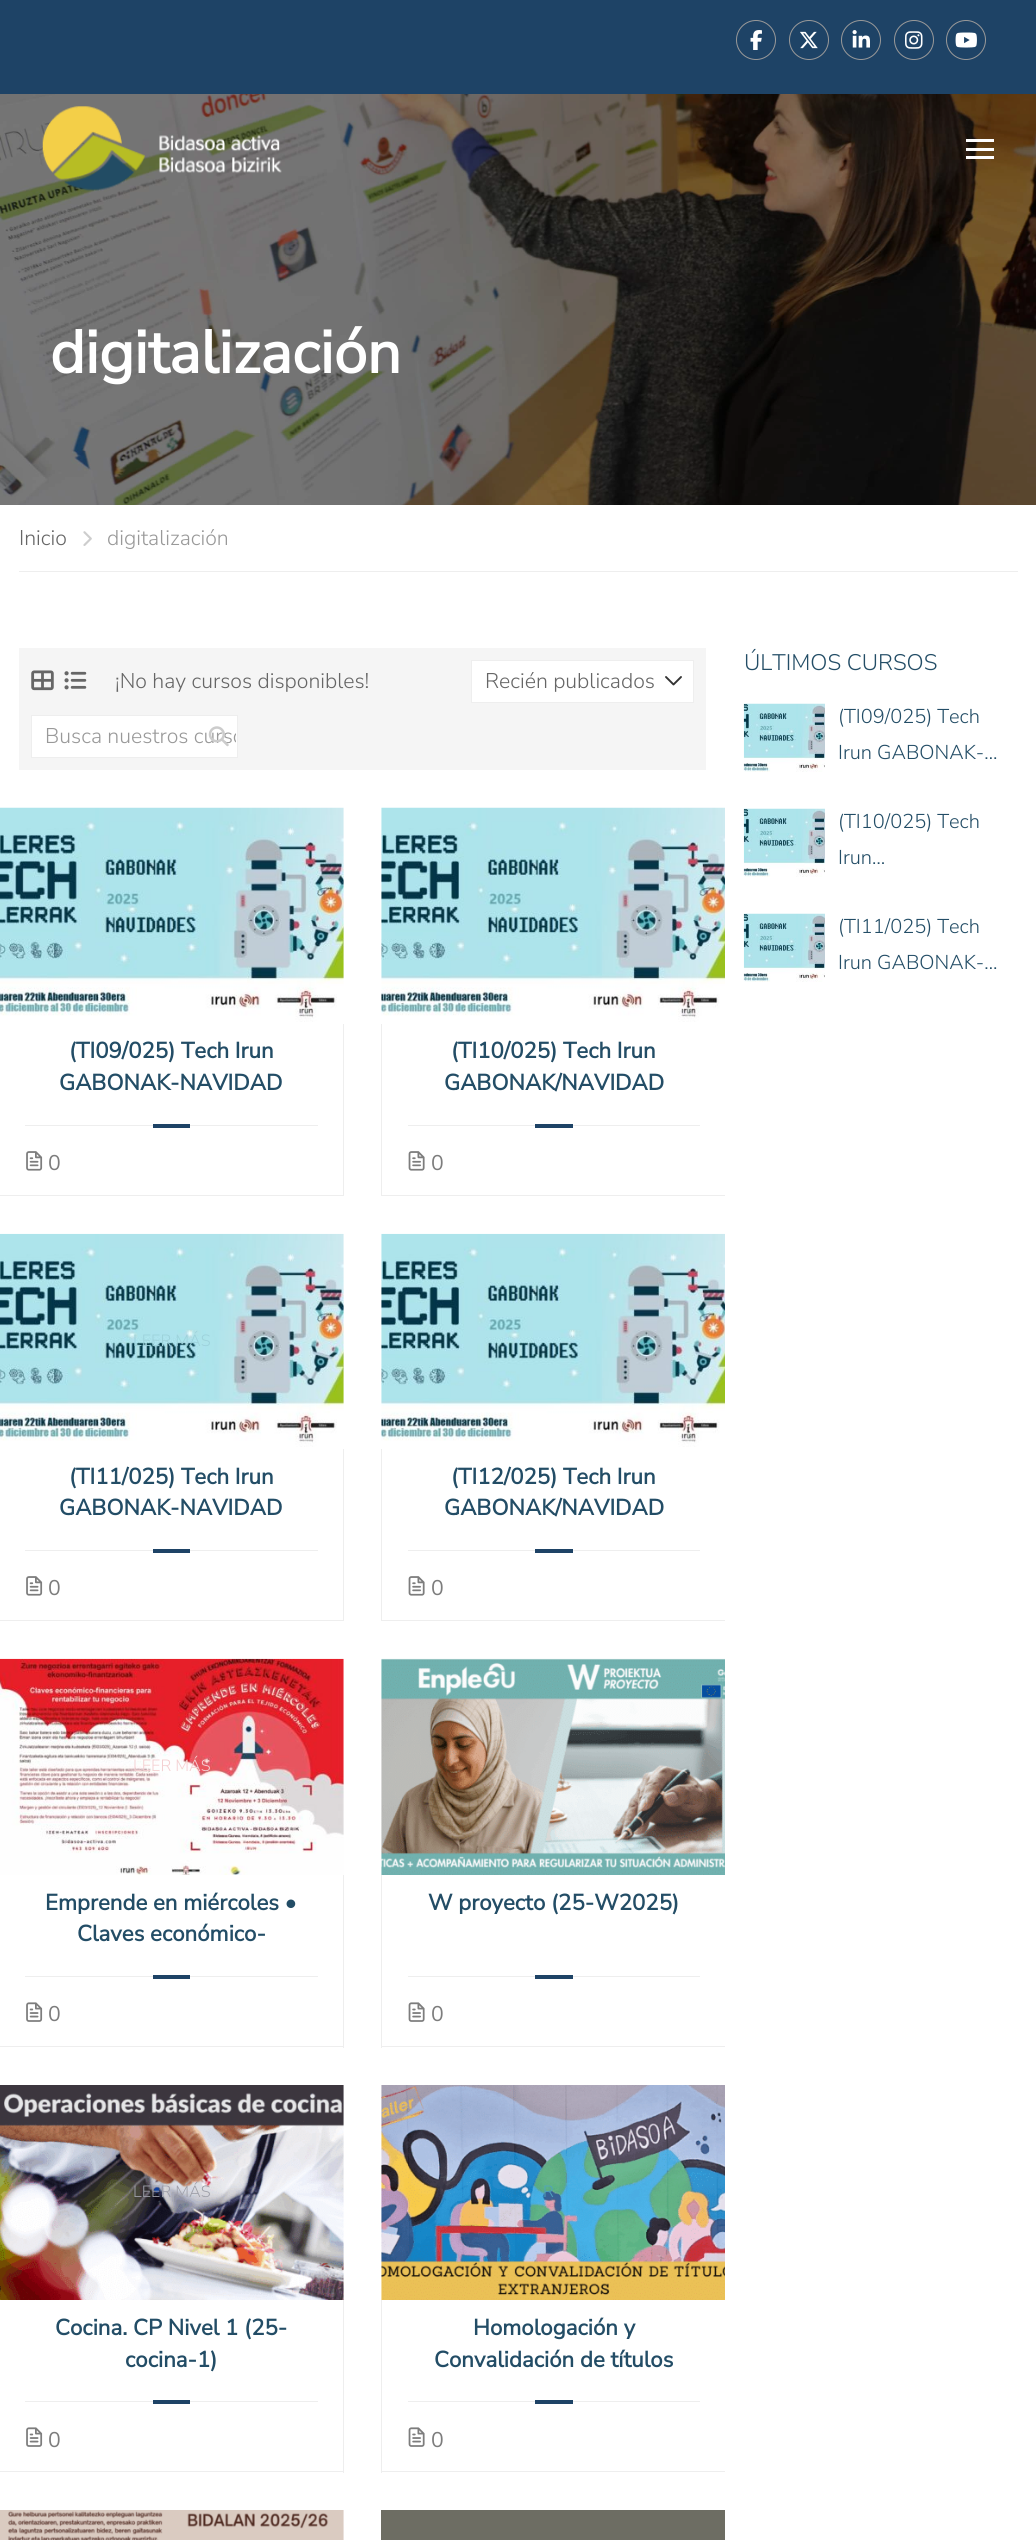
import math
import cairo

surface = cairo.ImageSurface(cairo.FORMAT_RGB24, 1036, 2540)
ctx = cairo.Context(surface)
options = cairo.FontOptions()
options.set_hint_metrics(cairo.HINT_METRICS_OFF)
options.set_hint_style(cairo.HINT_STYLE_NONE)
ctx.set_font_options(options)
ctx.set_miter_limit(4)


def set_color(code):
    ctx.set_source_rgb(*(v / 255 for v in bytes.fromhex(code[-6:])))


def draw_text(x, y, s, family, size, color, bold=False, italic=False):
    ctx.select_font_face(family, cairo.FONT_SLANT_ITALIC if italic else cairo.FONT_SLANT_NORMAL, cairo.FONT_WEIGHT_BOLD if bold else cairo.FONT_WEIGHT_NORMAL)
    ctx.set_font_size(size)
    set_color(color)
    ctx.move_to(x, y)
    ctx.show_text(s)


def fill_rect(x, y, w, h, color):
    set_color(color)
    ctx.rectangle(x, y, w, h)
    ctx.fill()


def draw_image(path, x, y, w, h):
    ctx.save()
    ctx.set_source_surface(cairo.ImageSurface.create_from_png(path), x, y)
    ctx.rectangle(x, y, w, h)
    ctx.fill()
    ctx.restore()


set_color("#ffffff")
ctx.paint()
fill_rect(0, 0, 1036, 94, "#1e4366")
ctx.arc(756, 40, 19.5, 0, 2 * math.pi)
set_color("#999999")
ctx.set_line_width(1)
ctx.stroke()
draw_image("assets/img1.png", 750, 30, 12, 20)
ctx.arc(809, 40, 19.5, 0, 2 * math.pi)
ctx.stroke()
draw_image("assets/img2.png", 800, 31, 18, 18)
ctx.arc(861, 40, 19.5, 0, 2 * math.pi)
ctx.stroke()
draw_image("assets/img3.png", 852, 30, 18, 18)
ctx.arc(914, 40, 19.5, 0, 2 * math.pi)
ctx.stroke()
draw_image("assets/img4.png", 905, 31, 18, 18)
ctx.arc(966, 40, 19.5, 0, 2 * math.pi)
ctx.stroke()
draw_image("assets/img5.png", 955, 32, 22, 16)
draw_image("assets/img7.png", 0, 94, 1036, 411)
draw_image("assets/img6.png", 42, 106, 240, 85)
fill_rect(966, 139, 28, 3, "#ffffff")
fill_rect(966, 148, 28, 3, "#ffffff")
fill_rect(966, 156, 28, 3, "#ffffff")
draw_text(50, 373, "digitalización", "Nunito Sans", 60, "#ffffff", bold=True)
fill_rect(19, 571, 999, 1, "#eeeeee")
draw_text(19, 545, "Inicio", "Nunito Sans Light", 21.25, "#666666")
draw_image("assets/img8.png", 83, 531, 9, 15)
draw_text(107, 545, "digitalización", "Nunito Sans Light", 21.25, "#999999")
fill_rect(19, 648, 687, 122, "#f5f5f5")
draw_image("assets/img9.png", 31, 670, 23, 21)
draw_image("assets/img10.png", 64, 671, 23, 19)
draw_text(115, 688, "¡No hay cursos disponibles!", "Nunito Sans Light", 21.25, "#666666")
fill_rect(472, 661, 221, 41, "#ffffff")
ctx.new_path()
ctx.move_to(666, 677)
ctx.line_to(673.5, 684.5)
ctx.line_to(681, 677)
set_color("#333333")
ctx.set_line_width(1.9)
ctx.set_line_cap(cairo.LINE_CAP_ROUND)
ctx.set_line_join(cairo.LINE_JOIN_ROUND)
ctx.stroke()
ctx.rectangle(471.5, 660.5, 222, 42)
set_color("#eeeeee")
ctx.set_line_width(1)
ctx.set_line_cap(cairo.LINE_CAP_BUTT)
ctx.set_line_join(cairo.LINE_JOIN_MITER)
ctx.stroke()
draw_text(485, 688, "Recién publicados", "Nunito Sans Light", 21.25, "#666666")
set_color("#ffffff")
ctx.rectangle(31.5, 715.5, 206, 42)
ctx.fill_preserve()
set_color("#eeeeee")
ctx.stroke()
ctx.save()
ctx.rectangle(45, 723, 191, 28)
ctx.clip()
draw_text(45, 743, "Busca nuestros curso", "Nunito Sans Light", 21.25, "#999999")
ctx.restore()
draw_image("assets/img11.png", 208, 726, 21, 21)
draw_image("assets/img12.png", 0, 807, 344, 215)
fill_rect(343, 1024, 1, 172, "#eeeeee")
fill_rect(0, 1195, 344, 1, "#eeeeee")
draw_text(69, 1058, "(TI09/025) Tech Irun", "Nunito Sans", 22.25, "#234d66", bold=True)
draw_text(59, 1090, "GABONAK-NAVIDAD", "Nunito Sans", 22.25, "#234d66", bold=True)
fill_rect(25, 1125, 293, 1, "#eeeeee")
fill_rect(153, 1124, 37, 4, "#1e4366")
draw_image("assets/img13.png", 26, 1151, 17, 20)
draw_text(48, 1170, "0", "Nunito Sans", 21.25, "#7d7d7d")
draw_image("assets/img14.png", 381, 807, 344, 215)
fill_rect(381, 1195, 344, 1, "#eeeeee")
fill_rect(381, 1024, 1, 172, "#eeeeee")
draw_text(451, 1058, "(TI10/025) Tech Irun", "Nunito Sans", 22.25, "#234d66", bold=True)
draw_text(444, 1090, "GABONAK/NAVIDAD", "Nunito Sans", 22.25, "#234d66", bold=True)
fill_rect(408, 1125, 292, 1, "#eeeeee")
fill_rect(535, 1124, 38, 4, "#1e4366")
draw_image("assets/img15.png", 408, 1151, 17, 20)
draw_text(431, 1170, "0", "Nunito Sans", 21.25, "#7d7d7d")
draw_image("assets/img16.png", 0, 1233, 344, 214)
draw_text(133, 1346, "LEER MÁS", "Nunito Sans Light", 16.25, "#9dd2db")
fill_rect(343, 1449, 1, 172, "#eeeeee")
fill_rect(0, 1620, 344, 1, "#eeeeee")
draw_text(69, 1484, "(TI11/025) Tech Irun", "Nunito Sans", 22.25, "#234d66", bold=True)
draw_text(59, 1515, "GABONAK-NAVIDAD", "Nunito Sans", 22.25, "#234d66", bold=True)
fill_rect(25, 1550, 293, 1, "#eeeeee")
fill_rect(153, 1549, 37, 4, "#1e4366")
draw_image("assets/img13.png", 26, 1576, 17, 20)
draw_text(48, 1595, "0", "Nunito Sans", 21.25, "#7d7d7d")
draw_image("assets/img17.png", 381, 1233, 344, 214)
fill_rect(381, 1620, 344, 1, "#eeeeee")
fill_rect(381, 1449, 1, 172, "#eeeeee")
draw_text(451, 1484, "(TI12/025) Tech Irun", "Nunito Sans", 22.25, "#234d66", bold=True)
draw_text(444, 1515, "GABONAK/NAVIDAD", "Nunito Sans", 22.25, "#234d66", bold=True)
fill_rect(408, 1550, 292, 1, "#eeeeee")
fill_rect(535, 1549, 38, 4, "#1e4366")
draw_image("assets/img15.png", 408, 1576, 17, 20)
draw_text(431, 1595, "0", "Nunito Sans", 21.25, "#7d7d7d")
draw_image("assets/img18.png", 0, 1658, 344, 217)
draw_text(133, 1771, "LEER MÁS", "Nunito Sans Light", 16.25, "#f4cfd1")
fill_rect(343, 1875, 1, 173, "#eeeeee")
fill_rect(0, 2046, 344, 1, "#eeeeee")
draw_text(45, 1910, "Emprende en miércoles •", "Nunito Sans", 22.25, "#234d66", bold=True)
draw_text(77, 1941, "Claves económico-", "Nunito Sans", 22.25, "#234d66", bold=True)
fill_rect(25, 1976, 293, 1, "#eeeeee")
fill_rect(153, 1975, 37, 4, "#1e4366")
draw_image("assets/img19.png", 26, 2002, 17, 20)
draw_text(48, 2021, "0", "Nunito Sans", 21.25, "#7d7d7d")
draw_image("assets/img20.png", 381, 1658, 344, 217)
fill_rect(381, 2046, 344, 1, "#eeeeee")
fill_rect(381, 1875, 1, 173, "#eeeeee")
draw_text(428, 1910, "W proyecto (25-W2025)", "Nunito Sans", 22.25, "#234d66", bold=True)
fill_rect(408, 1976, 292, 1, "#eeeeee")
fill_rect(535, 1975, 38, 4, "#1e4366")
draw_image("assets/img21.png", 408, 2002, 17, 20)
draw_text(431, 2021, "0", "Nunito Sans", 21.25, "#7d7d7d")
draw_image("assets/img22.png", 0, 2085, 344, 215)
draw_text(133, 2197, "LEER MÁS", "Nunito Sans Light", 16.25, "#9fa0a9")
fill_rect(343, 2300, 1, 173, "#eeeeee")
fill_rect(0, 2471, 344, 1, "#eeeeee")
draw_text(55, 2335, "Cocina. CP Nivel 1 (25-", "Nunito Sans", 22.25, "#234d66", bold=True)
draw_text(125, 2367, "cocina-1)", "Nunito Sans", 22.25, "#234d66", bold=True)
fill_rect(25, 2401, 293, 1, "#eeeeee")
fill_rect(153, 2400, 37, 4, "#1e4366")
draw_image("assets/img19.png", 26, 2427, 17, 20)
draw_text(48, 2447, "0", "Nunito Sans", 21.25, "#7d7d7d")
draw_image("assets/img23.png", 381, 2085, 344, 215)
draw_text(543, 2197, "R", "Nunito Sans Light", 16.25, "#4fa4bd")
fill_rect(381, 2471, 344, 1, "#eeeeee")
fill_rect(381, 2300, 1, 173, "#eeeeee")
draw_text(473, 2335, "Homologación y", "Nunito Sans", 22.25, "#234d66", bold=True)
draw_text(434, 2367, "Convalidación de títulos", "Nunito Sans", 22.25, "#234d66", bold=True)
fill_rect(408, 2401, 292, 1, "#eeeeee")
fill_rect(535, 2400, 38, 4, "#1e4366")
draw_image("assets/img21.png", 408, 2427, 17, 20)
draw_text(431, 2447, "0", "Nunito Sans", 21.25, "#7d7d7d")
draw_image("assets/img24.png", 0, 2510, 344, 30)
fill_rect(381, 2510, 344, 30, "#6d6d63")
draw_text(744, 670, "ÚLTIMOS CURSOS", "Nunito Sans Light", 22.5, "#234d66")
draw_image("assets/img25.png", 743, 703, 82, 69)
draw_text(838, 723, "(TI09/025) Tech", "Nunito Sans Light", 20, "#234d66")
draw_text(838, 759, "Irun GABONAK-…", "Nunito Sans Light", 20, "#234d66")
draw_image("assets/img26.png", 743, 808, 82, 69)
draw_text(838, 828, "(TI10/025) Tech", "Nunito Sans Light", 20, "#234d66")
draw_text(838, 864, "Irun…", "Nunito Sans Light", 20, "#234d66")
draw_image("assets/img27.png", 743, 913, 82, 69)
draw_text(838, 933, "(TI11/025) Tech", "Nunito Sans Light", 20, "#234d66")
draw_text(838, 969, "Irun GABONAK-…", "Nunito Sans Light", 20, "#234d66")
surface.write_to_png("output.png")
